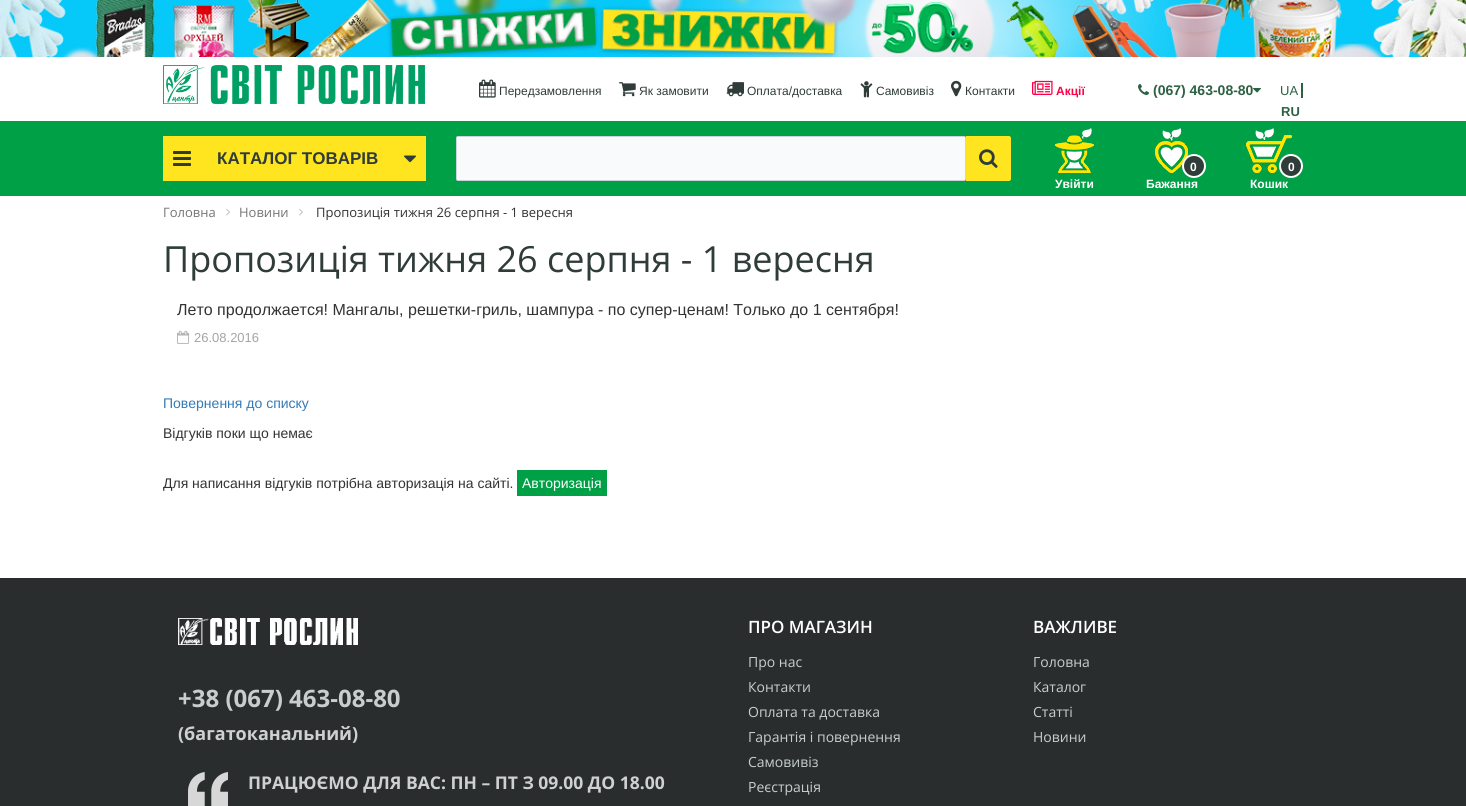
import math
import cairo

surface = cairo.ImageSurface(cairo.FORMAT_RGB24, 1466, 806)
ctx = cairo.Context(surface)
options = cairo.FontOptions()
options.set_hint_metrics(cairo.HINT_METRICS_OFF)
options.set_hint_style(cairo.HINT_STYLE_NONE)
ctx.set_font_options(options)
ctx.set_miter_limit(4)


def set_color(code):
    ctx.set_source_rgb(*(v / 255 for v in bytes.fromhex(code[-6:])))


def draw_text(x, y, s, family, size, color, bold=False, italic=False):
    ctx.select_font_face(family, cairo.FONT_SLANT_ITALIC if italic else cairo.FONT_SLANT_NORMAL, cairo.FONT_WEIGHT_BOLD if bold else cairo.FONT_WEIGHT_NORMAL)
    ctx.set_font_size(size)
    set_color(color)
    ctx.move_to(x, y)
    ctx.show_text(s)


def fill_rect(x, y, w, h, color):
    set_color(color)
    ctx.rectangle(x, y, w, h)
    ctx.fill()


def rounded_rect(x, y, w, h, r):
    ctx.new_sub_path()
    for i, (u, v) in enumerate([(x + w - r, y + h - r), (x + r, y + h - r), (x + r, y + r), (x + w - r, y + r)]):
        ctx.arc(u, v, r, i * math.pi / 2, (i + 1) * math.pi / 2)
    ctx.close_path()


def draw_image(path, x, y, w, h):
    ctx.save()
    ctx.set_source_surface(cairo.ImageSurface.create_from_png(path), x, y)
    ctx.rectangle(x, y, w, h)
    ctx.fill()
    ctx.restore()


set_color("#ffffff")
ctx.paint()
draw_image("assets/img1.png", 0, 0, 1466, 57)
draw_image("assets/img2.png", 163, 65, 262, 39)
draw_image("assets/img3.png", 479, 79, 17, 19)
draw_text(499, 95, "Передзамовлення", "Liberation Sans", 12, "#2f3c39")
draw_image("assets/img4.png", 619, 82, 17, 15)
draw_text(639, 95, "Як замовити", "Liberation Sans", 12, "#2f3c39")
draw_image("assets/img5.png", 726, 82, 18, 15)
draw_text(747, 95, "Оплата/доставка", "Liberation Sans", 12, "#2f3c39")
draw_image("assets/img6.png", 860, 81, 13, 17)
draw_text(876, 95, "Самовивіз", "Liberation Sans", 12, "#2f3c39")
draw_image("assets/img7.png", 951, 80, 11, 17)
draw_text(965, 95, "Контакти", "Liberation Sans", 12, "#2f3c39")
draw_image("assets/img8.png", 1032, 80, 21, 15)
draw_text(1056, 95, "Акції", "Liberation Sans", 12, "#ff0048", bold=True)
draw_image("assets/img9.png", 1138, 84, 11, 11)
draw_text(1153, 95, "(067) 463-08-80", "Liberation Sans", 14, "#2d6143", bold=True)
draw_image("assets/img10.png", 1253, 88, 8, 5)
draw_text(1280, 95, "UA", "Liberation Sans", 13, "#2d6143")
fill_rect(1301, 83, 2, 15, "#2d6143")
draw_text(1281, 116, "RU", "Liberation Sans", 13, "#2d6143", bold=True)
fill_rect(0, 121, 1466, 75, "#00a046")
fill_rect(163, 136, 263, 45, "#ffe520")
draw_image("assets/img11.png", 173, 151, 18, 15)
draw_text(217, 164, "КАТАЛОГ ТОВАРІВ", "Liberation Sans", 17, "#2f3c39", bold=True)
draw_image("assets/img12.png", 404, 155, 12, 8)
set_color("#f8fafc")
rounded_rect(456.5, 136.5, 509, 44, 1.5)
ctx.fill_preserve()
set_color("#ccd5db")
ctx.set_line_width(1)
ctx.stroke()
set_color("#ffe520")
ctx.new_path()
ctx.move_to(966, 136)
ctx.line_to(1009, 136)
ctx.curve_to(1010, 136, 1011, 137, 1011, 138)
ctx.line_to(1011, 179)
ctx.curve_to(1011, 180, 1010, 181, 1009, 181)
ctx.line_to(966, 181)
ctx.close_path()
ctx.fill()
draw_image("assets/img13.png", 979, 149, 19, 19)
draw_image("assets/img14.png", 1055, 128, 39, 45)
draw_text(1055, 188, "Увійти", "Liberation Sans", 12, "#ffffff", bold=True)
draw_image("assets/img15.png", 1155, 128, 33, 45)
set_color("#2f3c39")
ctx.arc(1194, 166, 11, 0, 2 * math.pi)
ctx.fill_preserve()
set_color("#ffffff")
ctx.set_line_width(2)
ctx.stroke()
draw_text(1190, 171, "0", "Liberation Sans", 12, "#ffffff", bold=True)
draw_text(1146, 188, "Бажання", "Liberation Sans", 12, "#ffffff", bold=True)
draw_image("assets/img16.png", 1246, 128, 46, 45)
set_color("#2f3c39")
ctx.arc(1291, 166, 11, 0, 2 * math.pi)
ctx.fill_preserve()
set_color("#ffffff")
ctx.stroke()
draw_text(1288, 171, "0", "Liberation Sans", 12, "#ffffff", bold=True)
draw_text(1250, 188, "Кошик", "Liberation Sans", 12, "#ffffff", bold=True)
draw_text(163, 217, "Головна", "Open Sans", 13, "#757575")
draw_image("assets/img17.png", 226, 208, 4, 8)
draw_text(239, 217, "Новини", "Open Sans", 13, "#757575")
draw_image("assets/img17.png", 299, 208, 4, 8)
draw_text(316, 217, "Пропозиція тижня 26 серпня - 1 вересня", "Open Sans", 13, "#333333")
draw_text(163, 272, "Пропозиція тижня 26 серпня - 1 вересня", "Open Sans", 36, "#2f3c39")
draw_text(177, 315, "Лето продолжается! Мангалы, решетки-гриль, шампура - по супер-ценам! Только до 1 сентября!", "Liberation Sans", 16, "#333333")
draw_image("assets/img18.png", 177, 330, 13, 14)
draw_text(194, 342, "26.08.2016", "Liberation Sans", 13, "#a4a4a4")
draw_text(163, 408, "Повернення до списку", "Liberation Sans", 14, "#337ab7")
draw_text(163, 438, "Відгуків поки що немає", "Liberation Sans", 14, "#333333")
draw_text(163, 488, "Для написання відгуків потрібна авторизація на сайті.", "Liberation Sans", 14, "#333333")
fill_rect(517, 470, 90, 26, "#00a046")
draw_text(522, 488, "Авторизація", "Liberation Sans", 14, "#ffffff")
fill_rect(0, 578, 1466, 228, "#292d2e")
draw_image("assets/img19.png", 178, 618, 180, 27)
draw_text(178, 707, "+38 (067) 463-08-80", "Open Sans", 24, "#c8cece", bold=True)
draw_text(178, 740, "(багатоканальний)", "Open Sans", 18, "#cfd0d0", bold=True)
draw_image("assets/img20.png", 188, 772, 40, 34)
draw_text(248, 789, "ПРАЦЮЄМО ДЛЯ ВАС: ПН – ПТ З 09.00 ДО 18.00", "Open Sans", 17.5, "#cfd0d0", bold=True)
draw_text(748, 633, "ПРО МАГАЗИН", "Open Sans SemiBold", 17, "#ffffff")
draw_text(748, 667, "Про нас", "Open Sans", 14, "#c8cece")
draw_text(748, 692, "Контакти", "Open Sans", 14, "#c8cece")
draw_text(748, 717, "Оплата та доставка", "Open Sans", 14, "#c8cece")
draw_text(748, 742, "Гарантія і повернення", "Open Sans", 14, "#c8cece")
draw_text(748, 767, "Самовивіз", "Open Sans", 14, "#c8cece")
draw_text(748, 792, "Реєстрація", "Open Sans", 14, "#c8cece")
draw_text(1033, 633, "ВАЖЛИВЕ", "Open Sans SemiBold", 17, "#ffffff")
draw_text(1033, 667, "Головна", "Open Sans", 14, "#c8cece")
draw_text(1033, 692, "Каталог", "Open Sans", 14, "#c8cece")
draw_text(1033, 717, "Статті", "Open Sans", 14, "#c8cece")
draw_text(1033, 742, "Новини", "Open Sans", 14, "#c8cece")
surface.write_to_png("output.png")
